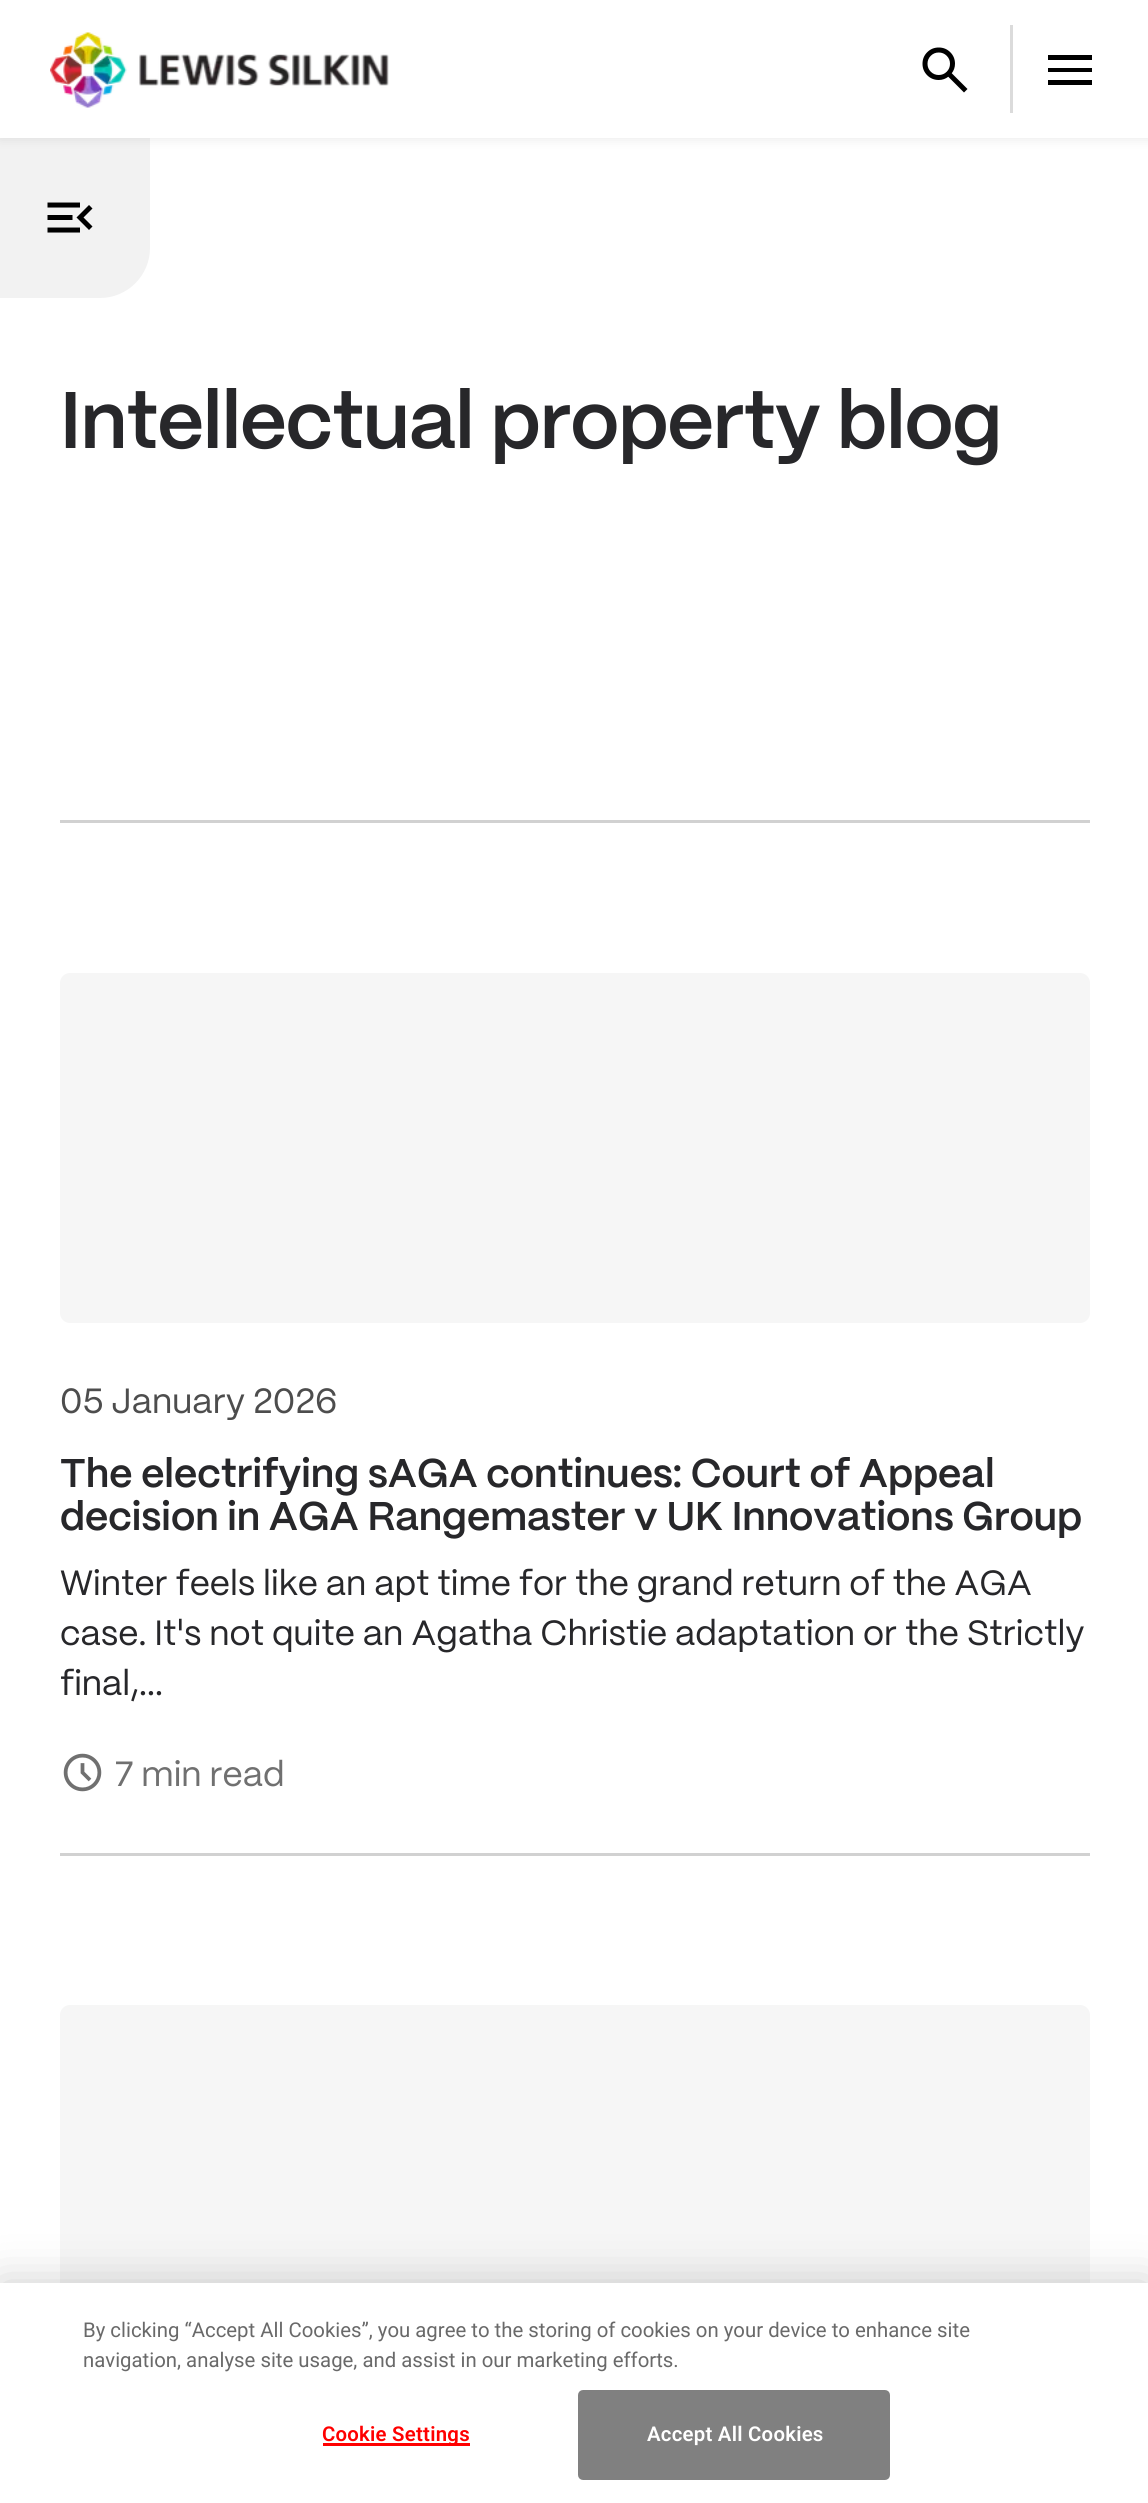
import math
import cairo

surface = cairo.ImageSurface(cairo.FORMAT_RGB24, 1148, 2503)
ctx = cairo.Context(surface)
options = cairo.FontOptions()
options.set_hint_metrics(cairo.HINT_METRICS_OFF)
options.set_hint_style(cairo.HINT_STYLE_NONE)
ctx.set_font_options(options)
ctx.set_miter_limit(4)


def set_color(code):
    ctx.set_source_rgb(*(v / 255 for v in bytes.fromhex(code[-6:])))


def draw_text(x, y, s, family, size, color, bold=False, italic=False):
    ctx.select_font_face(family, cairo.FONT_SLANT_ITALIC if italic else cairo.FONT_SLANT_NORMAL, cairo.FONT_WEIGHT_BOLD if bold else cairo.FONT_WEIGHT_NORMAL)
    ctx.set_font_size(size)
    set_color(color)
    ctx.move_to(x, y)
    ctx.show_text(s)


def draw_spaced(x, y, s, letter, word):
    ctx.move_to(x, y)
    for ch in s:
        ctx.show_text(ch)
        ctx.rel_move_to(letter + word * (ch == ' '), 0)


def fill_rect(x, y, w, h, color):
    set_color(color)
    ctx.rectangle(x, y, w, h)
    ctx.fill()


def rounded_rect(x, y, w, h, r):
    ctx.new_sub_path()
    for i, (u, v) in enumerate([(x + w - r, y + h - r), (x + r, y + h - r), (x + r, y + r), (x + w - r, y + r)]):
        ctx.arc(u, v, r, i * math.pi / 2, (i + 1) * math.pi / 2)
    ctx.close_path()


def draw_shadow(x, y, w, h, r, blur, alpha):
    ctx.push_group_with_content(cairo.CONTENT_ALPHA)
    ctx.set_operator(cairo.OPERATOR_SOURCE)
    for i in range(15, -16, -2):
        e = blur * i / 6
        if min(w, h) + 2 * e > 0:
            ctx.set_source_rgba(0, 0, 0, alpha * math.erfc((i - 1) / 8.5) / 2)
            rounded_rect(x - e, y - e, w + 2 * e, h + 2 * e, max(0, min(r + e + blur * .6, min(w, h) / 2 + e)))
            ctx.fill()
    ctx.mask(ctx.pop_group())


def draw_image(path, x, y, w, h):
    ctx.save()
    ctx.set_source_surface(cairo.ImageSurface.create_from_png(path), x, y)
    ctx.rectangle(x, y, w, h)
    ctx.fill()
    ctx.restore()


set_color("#ffffff")
ctx.paint()
set_color("#f2f2f2")
ctx.new_path()
ctx.move_to(0, 138)
ctx.line_to(150, 138)
ctx.line_to(150, 248)
ctx.curve_to(150, 275.5, 127.5, 298, 100, 298)
ctx.line_to(0, 298)
ctx.close_path()
ctx.fill()
set_color("#000000")
draw_shadow(0, 0, 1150, 138, 0, 6, 0.1)
fill_rect(0, 0, 1148, 138, "#ffffff")
draw_image("assets/img1.png", 50, 32, 339, 76)
draw_image("assets/img2.png", 922, 47, 46, 46)
fill_rect(1010, 25, 3, 88, "#dbdbdb")
set_color("#000000")
ctx.new_path()
ctx.move_to(1048, 85)
ctx.line_to(1048, 80)
ctx.line_to(1092, 80)
ctx.line_to(1092, 85)
ctx.close_path()
ctx.move_to(1048, 72)
ctx.line_to(1048, 68)
ctx.line_to(1092, 68)
ctx.line_to(1092, 72)
ctx.close_path()
ctx.move_to(1048, 60)
ctx.line_to(1048, 55)
ctx.line_to(1092, 55)
ctx.line_to(1092, 60)
ctx.close_path()
ctx.fill()
draw_image("assets/img3.png", 47, 202, 46, 31)
ctx.select_font_face("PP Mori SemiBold")
ctx.set_font_size(80)
set_color("#27272a")
draw_spaced(60, 448, "Intellectual property blog", -0.8, 0)
fill_rect(60, 820, 1030, 3, "#d1d1d1")
set_color("#f6f6f6")
rounded_rect(60, 973, 1030, 350, 10)
ctx.fill()
draw_text(60, 1413, "05 January 2026", "PP Mori", 35, "#4d4d4d")
draw_text(60, 1487, "The electrifying sAGA continues: Court of Appeal", "PP Mori SemiBold", 40, "#27272a")
draw_text(60, 1530, "decision in AGA Rangemaster v UK Innovations Group", "PP Mori SemiBold", 40, "#27272a")
draw_text(60, 1595, "Winter feels like an apt time for the grand return of the AGA", "PP Mori", 35, "#27272a")
draw_text(60, 1645, "case. It's not quite an Agatha Christie adaptation or the Strictly", "PP Mori", 35, "#27272a")
draw_text(60, 1695, "final,...", "PP Mori", 35, "#27272a")
draw_image("assets/img4.png", 63, 1753, 39, 39)
draw_text(115, 1786, "7 min read", "PP Mori", 35, "#707070")
fill_rect(60, 1853, 1030, 3, "#d1d1d1")
set_color("#f6f6f6")
rounded_rect(60, 2005, 1030, 350, 10)
ctx.fill()
set_color("#000000")
draw_shadow(0, 2283, 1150, 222, 0, 22.5, 0.2)
fill_rect(0, 2283, 1148, 220, "#ffffff")
draw_text(83, 2337, "By clicking “Accept All Cookies”, you agree to the storing of cookies on your device to enhance site", "Roboto", 20.35, "#696969")
draw_text(83, 2367, "navigation, analyse site usage, and assist in our marketing efforts.", "Roboto", 20.35, "#696969")
fill_rect(323, 2443, 147, 3, "#ff0000")
ctx.select_font_face("Roboto SemiBold")
draw_spaced(322, 2441, "Cookie Settings", 0.25, 0)
set_color("#808080")
rounded_rect(579.5, 2391.5, 309, 87, 3.5)
ctx.fill_preserve()
ctx.set_line_width(3)
ctx.stroke()
set_color("#ffffff")
draw_spaced(647, 2441, "Accept All Cookies", 0.25, 0)
surface.write_to_png("output.png")
